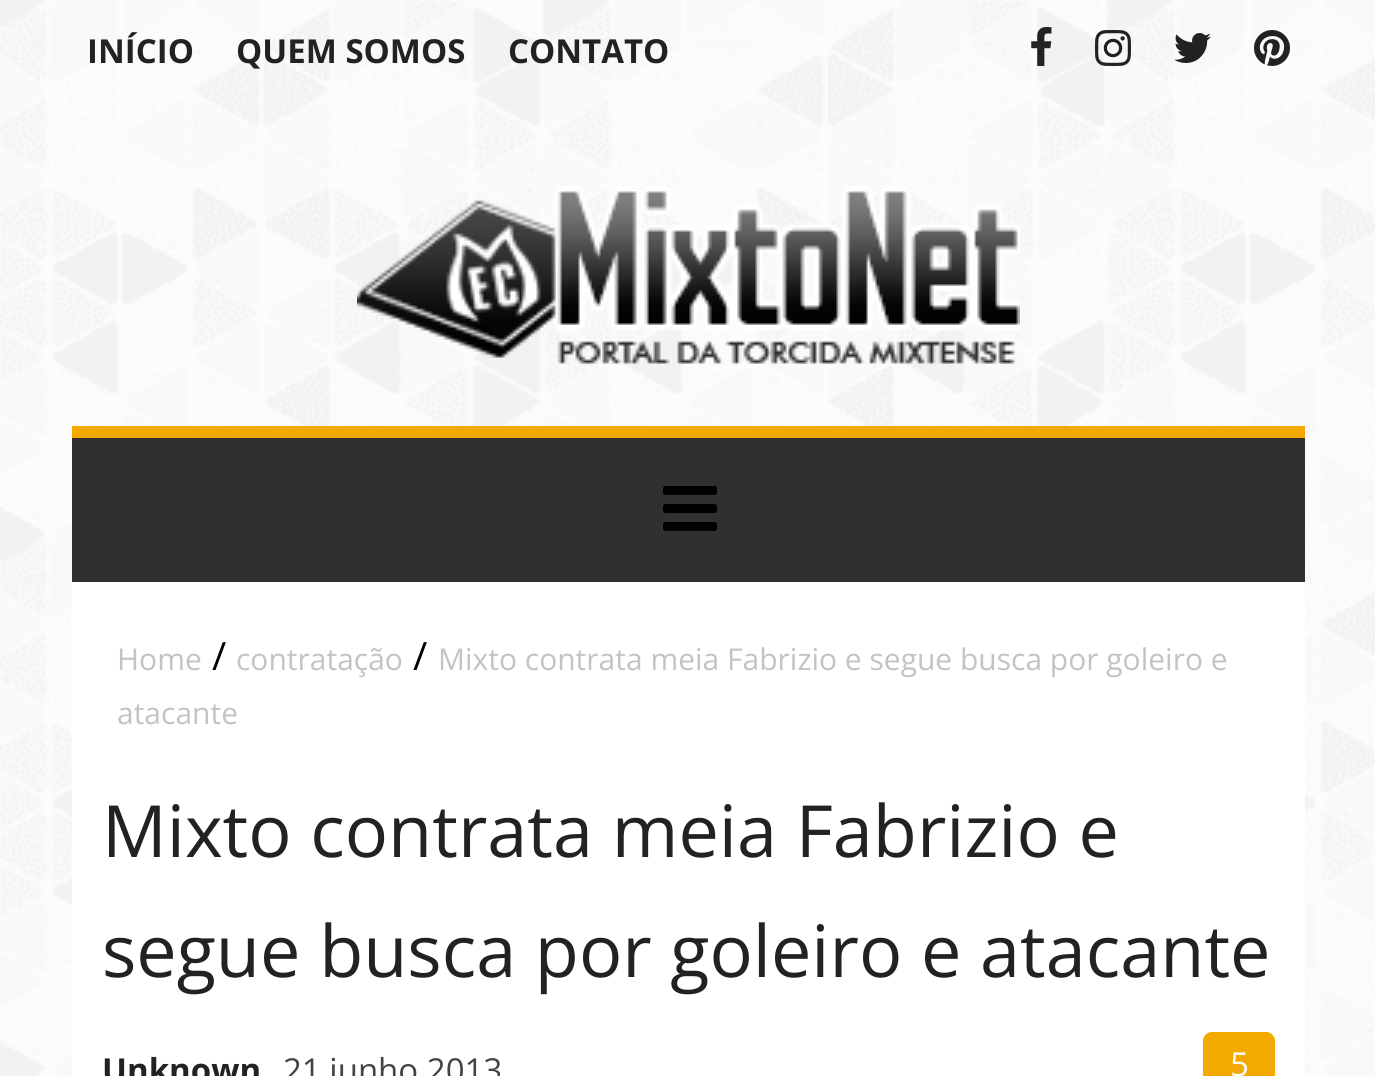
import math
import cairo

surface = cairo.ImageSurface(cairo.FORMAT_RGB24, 1375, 1076)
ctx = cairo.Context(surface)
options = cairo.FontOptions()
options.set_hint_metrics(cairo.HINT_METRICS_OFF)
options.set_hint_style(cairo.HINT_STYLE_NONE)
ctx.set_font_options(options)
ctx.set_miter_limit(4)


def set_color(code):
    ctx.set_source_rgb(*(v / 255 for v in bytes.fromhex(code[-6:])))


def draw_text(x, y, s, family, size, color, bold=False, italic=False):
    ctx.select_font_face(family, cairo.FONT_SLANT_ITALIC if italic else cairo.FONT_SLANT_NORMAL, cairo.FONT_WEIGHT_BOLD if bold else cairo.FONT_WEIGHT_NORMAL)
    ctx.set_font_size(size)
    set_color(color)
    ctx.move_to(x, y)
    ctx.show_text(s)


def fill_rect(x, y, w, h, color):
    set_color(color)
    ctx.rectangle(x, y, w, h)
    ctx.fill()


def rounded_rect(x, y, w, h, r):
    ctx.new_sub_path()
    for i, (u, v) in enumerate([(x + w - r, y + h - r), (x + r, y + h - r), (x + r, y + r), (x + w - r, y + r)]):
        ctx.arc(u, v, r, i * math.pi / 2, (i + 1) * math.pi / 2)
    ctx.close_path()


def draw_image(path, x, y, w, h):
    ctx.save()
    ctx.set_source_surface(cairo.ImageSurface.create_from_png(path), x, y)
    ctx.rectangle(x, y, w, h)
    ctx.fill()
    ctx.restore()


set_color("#ffffff")
ctx.paint()
draw_image("assets/img1.png", 0, 0, 1375, 1076)
draw_text(87, 63, "INÍCIO", "Open Sans", 33, "#222222", bold=True)
draw_text(236, 63, "QUEM SOMOS", "Open Sans", 33, "#222222", bold=True)
draw_text(508, 63, "CONTATO", "Open Sans", 33, "#222222", bold=True)
draw_image("assets/img2.png", 1031, 27, 21, 39)
draw_image("assets/img3.png", 1095, 30, 36, 36)
draw_image("assets/img4.png", 1174, 33, 37, 30)
draw_image("assets/img5.png", 1254, 30, 36, 36)
draw_image("assets/img6.png", 357, 186, 663, 178)
fill_rect(72, 438, 1233, 144, "#303030")
fill_rect(72, 426, 1233, 12, "#f4a900")
draw_image("assets/img7.png", 663, 486, 54, 45)
fill_rect(72, 582, 1233, 494, "#ffffff")
draw_text(117, 670, "Home", "Open Sans", 30, "#c3c3c3")
draw_text(212, 670, "/", "Open Sans", 39, "#000000")
draw_text(236, 670, "contratação", "Open Sans", 30, "#c3c3c3")
draw_text(413, 670, "/", "Open Sans", 39, "#000000")
draw_text(438, 670, "Mixto contrata meia Fabrizio e segue busca por goleiro e", "Open Sans", 30, "#c3c3c3")
draw_text(117, 724, "atacante", "Open Sans", 30, "#c3c3c3")
draw_text(102, 857, "Mixto contrata meia Fabrizio e", "Open Sans", 72, "#222222")
draw_text(102, 977, "segue busca por goleiro e atacante", "Open Sans", 72, "#222222")
draw_text(102, 1082, "Unknown", "Open Sans", 33, "#222222", bold=True)
draw_text(283, 1082, "21 junho 2013", "Open Sans", 33, "#444444")
set_color("#f4a900")
rounded_rect(1203, 1032, 72, 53, 9)
ctx.fill()
draw_text(1230, 1076, "5", "Open Sans", 33, "#ffffff")
surface.write_to_png("output.png")
